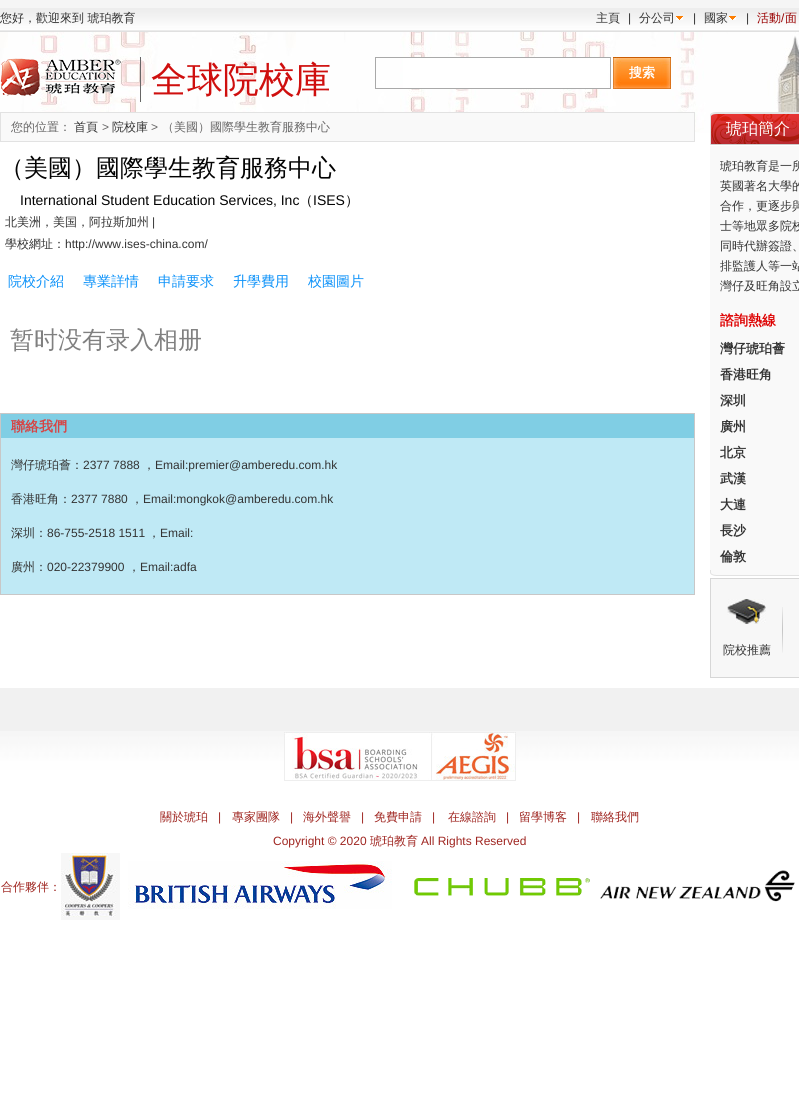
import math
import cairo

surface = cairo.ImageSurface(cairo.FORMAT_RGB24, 799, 1094)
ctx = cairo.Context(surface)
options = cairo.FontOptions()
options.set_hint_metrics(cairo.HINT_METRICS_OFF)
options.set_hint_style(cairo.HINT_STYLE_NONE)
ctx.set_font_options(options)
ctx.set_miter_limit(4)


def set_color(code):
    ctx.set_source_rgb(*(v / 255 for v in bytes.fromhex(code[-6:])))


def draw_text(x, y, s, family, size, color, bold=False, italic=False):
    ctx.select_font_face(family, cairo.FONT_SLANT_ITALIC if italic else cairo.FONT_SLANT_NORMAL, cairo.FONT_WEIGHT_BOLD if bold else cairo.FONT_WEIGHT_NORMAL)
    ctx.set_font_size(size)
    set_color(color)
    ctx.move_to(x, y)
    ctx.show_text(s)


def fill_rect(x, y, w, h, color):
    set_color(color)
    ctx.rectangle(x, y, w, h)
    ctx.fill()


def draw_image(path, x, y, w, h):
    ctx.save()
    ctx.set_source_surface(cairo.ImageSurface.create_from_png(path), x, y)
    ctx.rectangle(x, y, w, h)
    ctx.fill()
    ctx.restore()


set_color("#ffffff")
ctx.paint()
fill_rect(0, 0, 799, 8, "#f5f5f5")
draw_image("assets/img1.png", 0, 8, 799, 24)
draw_text(0, 22, "您好，歡迎來到 琥珀教育", "WenQuanYi Zen Hei Medium", 12, "#333333")
draw_text(596, 22, "主頁", "WenQuanYi Zen Hei Medium", 12, "#333333")
draw_text(628, 22, "|", "Liberation Sans", 12, "#333333")
draw_text(639, 22, "分公司", "WenQuanYi Zen Hei Medium", 12, "#333333")
draw_image("assets/img2.png", 676, 16, 7, 4)
draw_text(693, 22, "|", "Liberation Sans", 12, "#333333")
draw_text(704, 22, "國家", "WenQuanYi Zen Hei Medium", 12, "#333333")
draw_image("assets/img2.png", 729, 16, 7, 4)
draw_text(746, 22, "|", "Liberation Sans", 12, "#333333")
draw_text(757, 22, "活動", "WenQuanYi Zen Hei Medium", 12, "#990000")
draw_text(781, 22, "/", "Liberation Sans", 12, "#990000")
draw_text(785, 22, "面", "WenQuanYi Zen Hei Medium", 12, "#990000")
draw_image("assets/img3.png", 0, 32, 799, 101)
draw_image("assets/img4.png", 0, 58, 121, 38)
fill_rect(140, 57, 1, 45, "#676666")
draw_text(151, 92, "全球院校庫", "WenQuanYi Zen Hei Medium", 36, "#cf0f0e")
fill_rect(403, 58, 205, 30, "#ffffff")
ctx.rectangle(375.5, 57.5, 235, 31)
set_color("#a9a9a9")
ctx.set_line_width(1)
ctx.stroke()
draw_image("assets/img5.png", 613, 57, 58, 32)
draw_text(629, 77, "搜索", "WenQuanYi Zen Hei", 13, "#ffffff", bold=True)
set_color("#f9f9f9")
ctx.rectangle(0.5, 112.5, 694, 29)
ctx.fill_preserve()
set_color("#e2e2e2")
ctx.stroke()
draw_text(11, 131, "您的位置：", "WenQuanYi Zen Hei Medium", 12, "#676666")
draw_text(74, 131, "首頁", "WenQuanYi Zen Hei Medium", 12, "#333333")
draw_text(102, 131, ">", "Liberation Sans", 12, "#676666")
draw_text(112, 131, "院校庫", "WenQuanYi Zen Hei Medium", 12, "#333333")
draw_text(151, 131, ">", "Liberation Sans", 12, "#676666")
draw_text(162, 131, "（美國）國際學生教育服務中心", "WenQuanYi Zen Hei Medium", 12, "#676666")
draw_text(0, 176, "（美國）國際學生教育服務中心", "WenQuanYi Zen Hei Medium", 24, "#030303")
draw_text(20, 205, "International Student Education Services, Inc", "Liberation Sans", 14, "#030303")
draw_text(299, 205, "（", "WenQuanYi Zen Hei Medium", 14, "#030303")
draw_text(313, 205, "ISES", "Liberation Sans", 14, "#030303")
draw_text(345, 205, "）", "WenQuanYi Zen Hei Medium", 14, "#030303")
draw_text(5, 226, "北美洲，美国，阿拉斯加州", "WenQuanYi Zen Hei Medium", 12, "#333333")
draw_text(152, 226, "|", "Liberation Sans", 12, "#333333")
draw_text(5, 248, "學校網址：", "WenQuanYi Zen Hei Medium", 12, "#333333")
draw_text(65, 248, "http://www.ises-china.com/", "Liberation Sans", 12, "#333333")
draw_text(8, 286, "院校介紹", "WenQuanYi Zen Hei Medium", 14, "#0b91f9")
draw_text(83, 286, "專業詳情", "WenQuanYi Zen Hei Medium", 14, "#0b91f9")
draw_text(158, 286, "申請要求", "WenQuanYi Zen Hei Medium", 14, "#0b91f9")
draw_text(233, 286, "升學費用", "WenQuanYi Zen Hei Medium", 14, "#0b91f9")
draw_text(308, 286, "校園圖片", "WenQuanYi Zen Hei Medium", 14, "#0b91f9")
draw_text(10, 348, "暂时没有录入相册", "WenQuanYi Zen Hei Medium", 24, "#808080")
ctx.rectangle(0.5, 413.5, 694, 181)
set_color("#c8c7c7")
ctx.stroke()
fill_rect(1, 414, 693, 24, "#80cee4")
draw_text(11, 431, "聯絡我們", "WenQuanYi Zen Hei", 14, "#d74343", bold=True)
fill_rect(1, 438, 693, 156, "#bfe9f5")
draw_text(11, 469, "灣仔琥珀薈：", "WenQuanYi Zen Hei Medium", 12, "#333333")
draw_text(83, 469, "2377 7888", "Liberation Sans", 12, "#333333")
draw_text(143, 469, "，", "WenQuanYi Zen Hei Medium", 12, "#333333")
draw_text(155, 469, "Email:premier@amberedu.com.hk", "Liberation Sans", 12, "#333333")
draw_text(11, 503, "香港旺角：", "WenQuanYi Zen Hei Medium", 12, "#333333")
draw_text(71, 503, "2377 7880", "Liberation Sans", 12, "#333333")
draw_text(131, 503, "，", "WenQuanYi Zen Hei Medium", 12, "#333333")
draw_text(143, 503, "Email:mongkok@amberedu.com.hk", "Liberation Sans", 12, "#333333")
draw_text(11, 537, "深圳：", "WenQuanYi Zen Hei Medium", 12, "#333333")
draw_text(47, 537, "86-755-2518 1511", "Liberation Sans", 12, "#333333")
draw_text(148, 537, "，", "WenQuanYi Zen Hei Medium", 12, "#333333")
draw_text(160, 537, "Email:", "Liberation Sans", 12, "#333333")
draw_text(11, 571, "廣州：", "WenQuanYi Zen Hei Medium", 12, "#333333")
draw_text(47, 571, "020-22379900", "Liberation Sans", 12, "#333333")
draw_text(128, 571, "，", "WenQuanYi Zen Hei Medium", 12, "#333333")
draw_text(140, 571, "Email:adfa", "Liberation Sans", 12, "#333333")
draw_image("assets/img6.png", 710, 112, 89, 33)
draw_text(726, 134, "琥珀簡介", "WenQuanYi Zen Hei Medium", 16, "#ffffff")
fill_rect(710, 146, 89, 424, "#f9f9f9")
draw_text(720, 170, "琥珀教育是一所", "WenQuanYi Zen Hei Medium", 12, "#333333")
draw_text(720, 190, "英國著名大學的", "WenQuanYi Zen Hei Medium", 12, "#333333")
draw_text(720, 210, "合作，更逐步與", "WenQuanYi Zen Hei Medium", 12, "#333333")
draw_text(720, 230, "士等地眾多院校", "WenQuanYi Zen Hei Medium", 12, "#333333")
draw_text(720, 250, "同時代辦簽證、", "WenQuanYi Zen Hei Medium", 12, "#333333")
draw_text(720, 270, "排監護人等一站", "WenQuanYi Zen Hei Medium", 12, "#333333")
draw_text(720, 290, "灣仔及旺角設立", "WenQuanYi Zen Hei Medium", 12, "#333333")
draw_text(720, 325, "諮詢熱線", "WenQuanYi Zen Hei", 14, "#de0202", bold=True)
draw_text(720, 353, "灣仔琥珀薈", "WenQuanYi Zen Hei", 13, "#333333", bold=True)
draw_text(720, 379, "香港旺角", "WenQuanYi Zen Hei", 13, "#333333", bold=True)
draw_text(720, 405, "深圳", "WenQuanYi Zen Hei", 13, "#333333", bold=True)
draw_text(720, 431, "廣州", "WenQuanYi Zen Hei", 13, "#333333", bold=True)
draw_text(720, 457, "北京", "WenQuanYi Zen Hei", 13, "#333333", bold=True)
draw_text(720, 483, "武漢", "WenQuanYi Zen Hei", 13, "#333333", bold=True)
draw_text(720, 509, "大連", "WenQuanYi Zen Hei", 13, "#333333", bold=True)
draw_text(720, 535, "長沙", "WenQuanYi Zen Hei", 13, "#333333", bold=True)
draw_text(720, 561, "倫敦", "WenQuanYi Zen Hei", 13, "#333333", bold=True)
draw_image("assets/img7.png", 710, 570, 89, 6)
set_color("#f7f7f7")
ctx.rectangle(710.5, 578.5, 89, 99)
ctx.fill_preserve()
set_color("#d7d7d7")
ctx.stroke()
draw_image("assets/img8.png", 782, 607, 1, 46)
draw_image("assets/img9.png", 727, 599, 39, 25)
draw_text(723, 654, "院校推薦", "WenQuanYi Zen Hei Medium", 12, "#333333")
fill_rect(0, 688, 799, 43, "#f1f1f1")
draw_image("assets/img10.png", 0, 731, 799, 77)
draw_image("assets/img11.png", 284, 732, 232, 49)
draw_text(160, 821, "關於琥珀", "WenQuanYi Zen Hei Medium", 12, "#9f2520")
draw_text(218, 821, "|", "Liberation Sans", 12, "#9f2520")
draw_text(232, 821, "專家團隊", "WenQuanYi Zen Hei Medium", 12, "#9f2520")
draw_text(290, 821, "|", "Liberation Sans", 12, "#9f2520")
draw_text(303, 821, "海外聲譽", "WenQuanYi Zen Hei Medium", 12, "#9f2520")
draw_text(361, 821, "|", "Liberation Sans", 12, "#9f2520")
draw_text(374, 821, "免費申請", "WenQuanYi Zen Hei Medium", 12, "#9f2520")
draw_text(432, 821, "|", "Liberation Sans", 12, "#9f2520")
draw_text(448, 821, "在線諮詢", "WenQuanYi Zen Hei Medium", 12, "#9f2520")
draw_text(506, 821, "|", "Liberation Sans", 12, "#9f2520")
draw_text(519, 821, "留學博客", "WenQuanYi Zen Hei Medium", 12, "#9f2520")
draw_text(577, 821, "|", "Liberation Sans", 12, "#9f2520")
draw_text(591, 821, "聯絡我們", "WenQuanYi Zen Hei Medium", 12, "#9f2520")
draw_text(273, 845, "Copyright © 2020", "Liberation Sans", 12, "#9f2520")
draw_text(370, 845, "琥珀教育", "WenQuanYi Zen Hei Medium", 12, "#9f2520")
draw_text(421, 845, "All Rights Reserved", "Liberation Sans", 12, "#9f2520")
draw_text(1, 891, "合作夥伴：", "WenQuanYi Zen Hei Medium", 12, "#9f2520")
draw_image("assets/img12.png", 61, 853, 59, 67)
draw_image("assets/img13.png", 128, 861, 264, 48)
draw_image("assets/img14.png", 414, 878, 176, 18)
draw_image("assets/img15.png", 600, 870, 195, 32)
surface.write_to_png("output.png")
